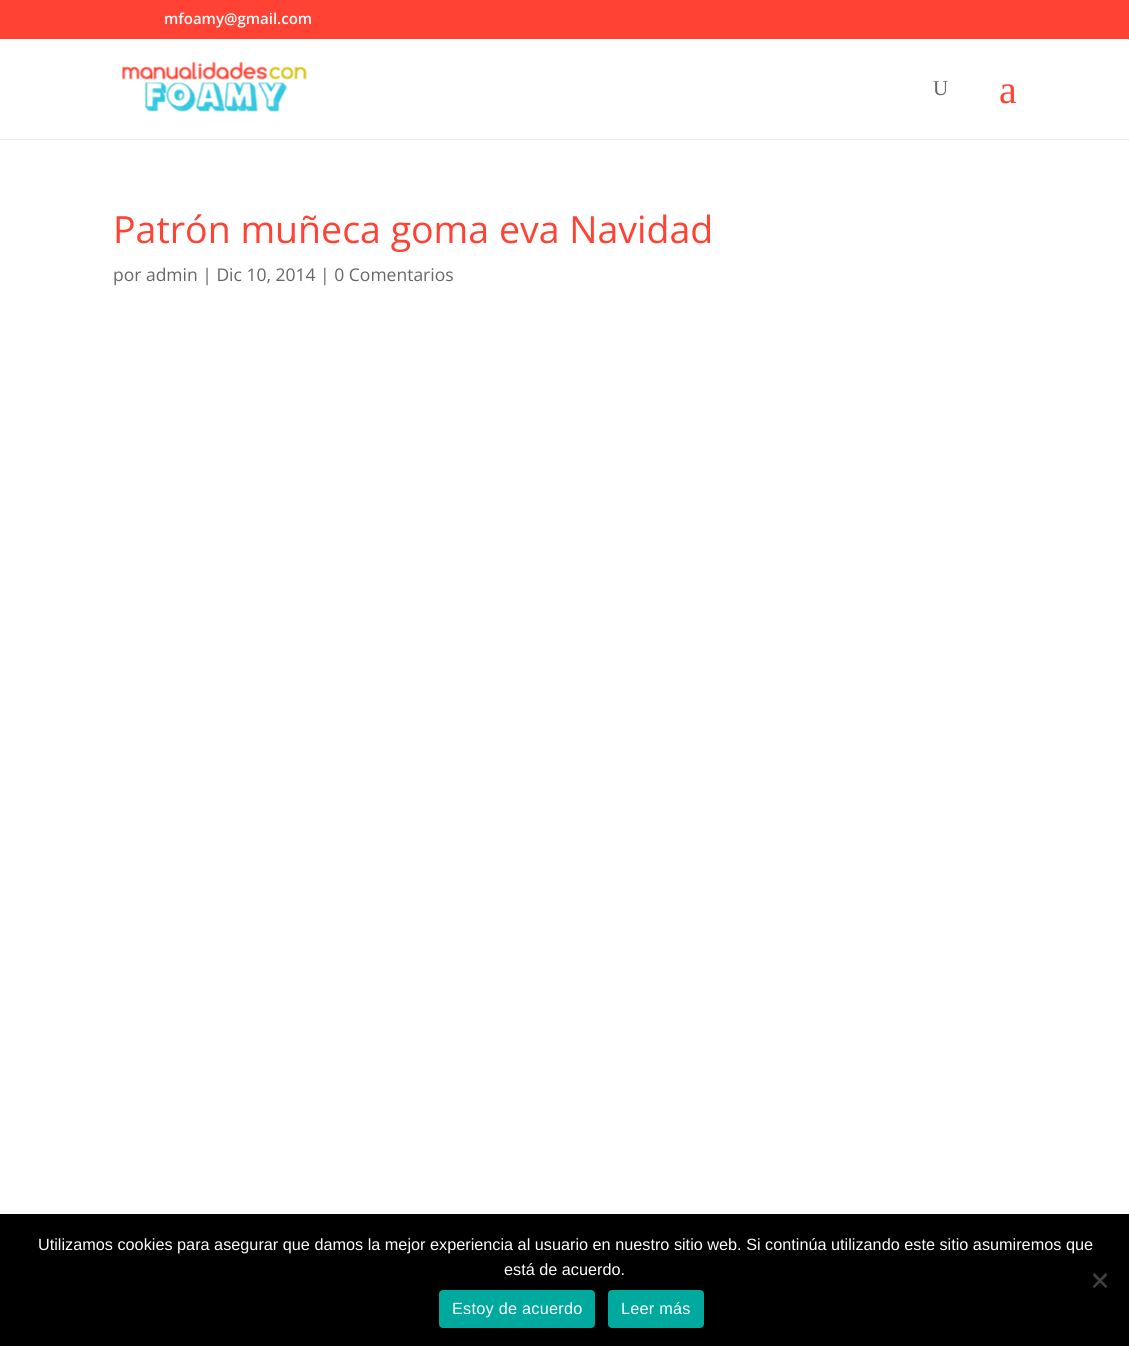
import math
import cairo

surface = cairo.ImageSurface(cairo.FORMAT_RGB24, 1129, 1346)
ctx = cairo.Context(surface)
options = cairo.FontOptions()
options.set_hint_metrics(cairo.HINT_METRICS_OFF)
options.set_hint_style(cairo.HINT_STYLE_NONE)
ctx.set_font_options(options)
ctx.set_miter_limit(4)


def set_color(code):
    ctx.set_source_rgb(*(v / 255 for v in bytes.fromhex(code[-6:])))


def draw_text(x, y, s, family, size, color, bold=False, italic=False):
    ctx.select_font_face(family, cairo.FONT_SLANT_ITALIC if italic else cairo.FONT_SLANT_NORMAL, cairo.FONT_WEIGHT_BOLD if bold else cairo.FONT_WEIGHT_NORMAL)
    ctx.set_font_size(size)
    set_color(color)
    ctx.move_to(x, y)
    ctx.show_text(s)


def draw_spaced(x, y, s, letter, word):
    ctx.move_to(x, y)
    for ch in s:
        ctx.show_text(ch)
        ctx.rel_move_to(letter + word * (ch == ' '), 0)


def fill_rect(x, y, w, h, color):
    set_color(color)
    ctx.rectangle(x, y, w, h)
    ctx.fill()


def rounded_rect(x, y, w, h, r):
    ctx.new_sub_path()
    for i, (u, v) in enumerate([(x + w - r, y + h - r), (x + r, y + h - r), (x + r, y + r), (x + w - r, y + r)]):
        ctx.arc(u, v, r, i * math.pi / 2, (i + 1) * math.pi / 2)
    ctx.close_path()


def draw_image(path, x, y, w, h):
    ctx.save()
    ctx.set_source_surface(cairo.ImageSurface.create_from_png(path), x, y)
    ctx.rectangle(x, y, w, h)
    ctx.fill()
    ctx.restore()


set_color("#ffffff")
ctx.paint()
fill_rect(0, 0, 1129, 39, "#ff4233")
draw_text(164, 24, "mfoamy@gmail.com", "Open Sans SemiBold", 15, "#ffffff")
fill_rect(0, 139, 1129, 1, "#e6e6e6")
draw_image("assets/img1.png", 122, 61, 185, 51)
draw_text(933, 95, "U", "Liberation Serif", 21, "#666666")
draw_text(999, 103, "a", "Liberation Serif", 40, "#ff4233")
draw_text(113, 243, "Patrón muñeca goma eva Navidad", "Open Sans", 37.5, "#ff4233")
draw_text(113, 281, "por admin | Dic 10, 2014 | 0 Comentarios", "Open Sans", 17.5, "#666666")
fill_rect(0, 1214, 1129, 132, "#000000")
draw_text(38, 1250, "Utilizamos cookies para asegurar que damos la mejor experiencia al usuario en nuestro sitio web. Si continúa utilizando este sitio asumiremos que", "Liberation Sans", 16.25, "#ffffff")
draw_text(504, 1275, "está de acuerdo.", "Liberation Sans", 16.25, "#ffffff")
set_color("#404040")
ctx.new_path()
ctx.move_to(1105.5, 1273)
ctx.line_to(1107.5, 1275)
ctx.line_to(1094.5, 1288)
ctx.line_to(1092.5, 1286.5)
ctx.close_path()
ctx.fill()
ctx.new_path()
ctx.move_to(1092.5, 1275)
ctx.line_to(1094.5, 1273)
ctx.line_to(1107.5, 1286.5)
ctx.line_to(1105.5, 1288)
ctx.close_path()
ctx.fill()
set_color("#00a99d")
rounded_rect(439, 1290, 156, 38, 4)
ctx.fill()
set_color("#ffffff")
draw_spaced(452, 1314, "Estoy de acuerdo", 0.25, 0)
set_color("#00a99d")
rounded_rect(608, 1290, 96, 38, 4)
ctx.fill()
set_color("#ffffff")
draw_spaced(621, 1314, "Leer más", 0.25, 0)
surface.write_to_png("output.png")
